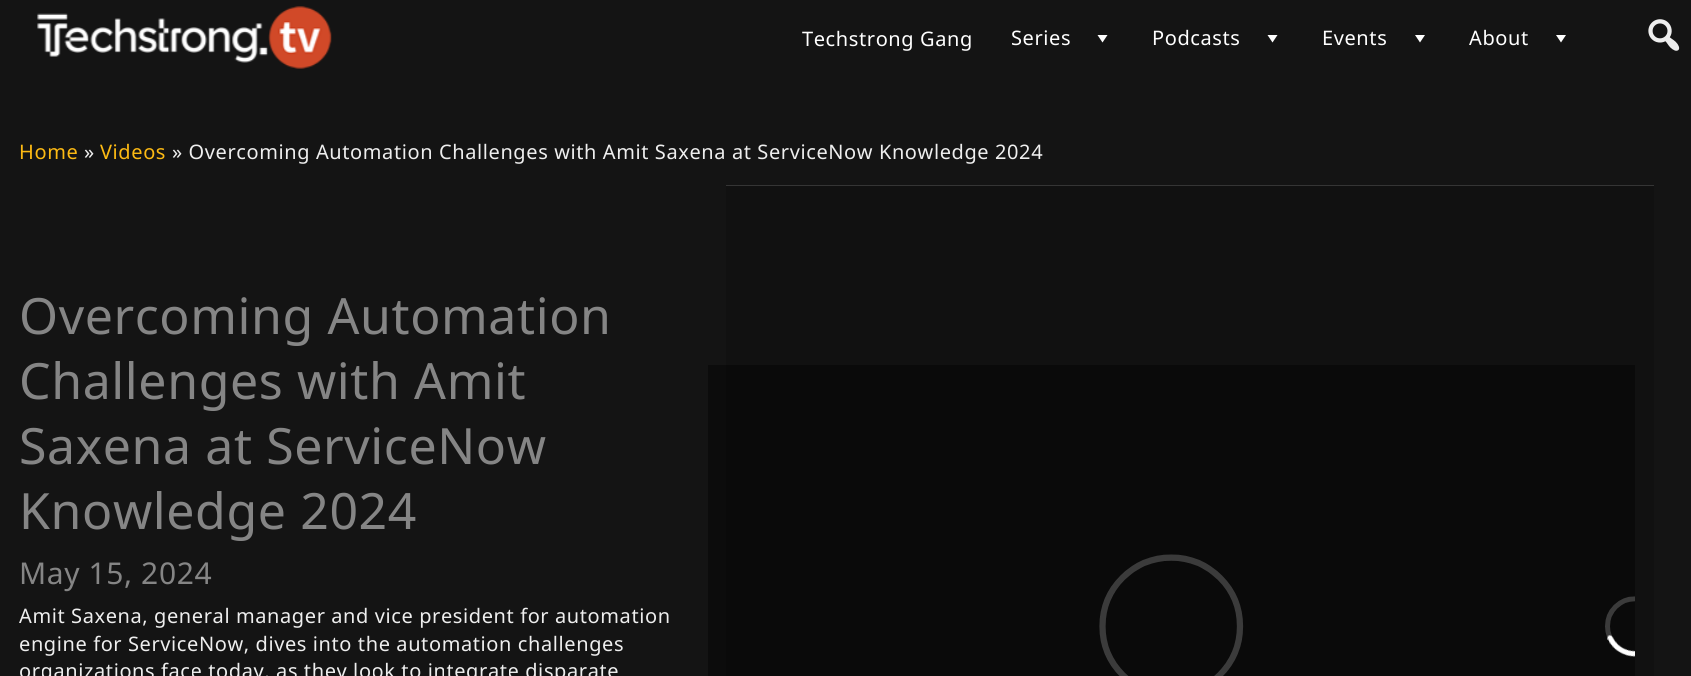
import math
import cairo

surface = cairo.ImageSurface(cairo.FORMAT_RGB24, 1691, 676)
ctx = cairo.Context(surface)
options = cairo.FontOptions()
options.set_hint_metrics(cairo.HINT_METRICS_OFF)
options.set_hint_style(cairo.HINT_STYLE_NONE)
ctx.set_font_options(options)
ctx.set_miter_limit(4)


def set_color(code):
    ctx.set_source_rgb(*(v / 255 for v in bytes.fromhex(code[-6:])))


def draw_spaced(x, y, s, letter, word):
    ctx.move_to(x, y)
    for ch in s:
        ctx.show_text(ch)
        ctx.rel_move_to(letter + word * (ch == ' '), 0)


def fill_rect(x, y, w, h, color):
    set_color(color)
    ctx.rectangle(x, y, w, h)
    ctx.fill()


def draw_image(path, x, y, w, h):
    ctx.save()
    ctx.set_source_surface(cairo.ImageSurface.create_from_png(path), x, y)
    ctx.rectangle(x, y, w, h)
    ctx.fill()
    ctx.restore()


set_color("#141414")
ctx.paint()
draw_image("assets/img1.png", 37, 6, 295, 63)
ctx.select_font_face("Noto Sans")
ctx.set_font_size(20)
set_color("#ffffff")
draw_spaced(802, 46, "Techstrong Gang", 0.6, 0)
draw_spaced(1011, 45, "Series", 0.6, 0)
ctx.new_path()
ctx.move_to(1107.5, 35)
ctx.line_to(1102.5, 42.5)
ctx.line_to(1097.5, 35)
ctx.close_path()
ctx.fill()
draw_spaced(1152, 45, "Podcasts", 0.6, 0)
ctx.new_path()
ctx.move_to(1277.5, 35)
ctx.line_to(1272.5, 42.5)
ctx.line_to(1267.5, 35)
ctx.close_path()
ctx.fill()
draw_spaced(1322, 45, "Events", 0.6, 0)
ctx.new_path()
ctx.move_to(1425, 35)
ctx.line_to(1420, 42.5)
ctx.line_to(1415, 35)
ctx.close_path()
ctx.fill()
draw_spaced(1469, 45, "About", 0.6, 0)
ctx.new_path()
ctx.move_to(1566, 35)
ctx.line_to(1561, 42.5)
ctx.line_to(1556, 35)
ctx.close_path()
ctx.fill()
draw_image("assets/img2.png", 1648, 19, 32, 32)
set_color("#fdba13")
draw_spaced(19, 159, "Home", 0.6, 0)
set_color("#eeeeee")
draw_spaced(84, 159, "»", 0.6, 0)
set_color("#fdba13")
draw_spaced(100, 159, "Videos", 0.6, 0)
set_color("#eeeeee")
draw_spaced(172, 159, "» Overcoming Automation Challenges with Amit Saxena at ServiceNow Knowledge 2024", 0.6, 0)
ctx.set_font_size(50)
set_color("#858585")
draw_spaced(19, 334, "Overcoming Automation", 0.6, 0)
draw_spaced(19, 399, "Challenges with Amit", 0.6, 0)
draw_spaced(19, 464, "Saxena at ServiceNow", 0.6, 0)
draw_spaced(19, 529, "Knowledge 2024", 0.6, 0)
ctx.set_font_size(30)
draw_spaced(19, 584, "May 15, 2024", 0.6, 0)
ctx.set_font_size(20)
set_color("#eeeeee")
draw_spaced(19, 623, "Amit Saxena, general manager and vice president for automation", 0.6, 0)
draw_spaced(19, 651, "engine for ServiceNow, dives into the automation challenges", 0.6, 0)
draw_spaced(19, 678, "organizations face today, as they look to integrate disparate", 0.6, 0)
fill_rect(726, 186, 928, 490, "#111111")
fill_rect(726, 185, 928, 1, "#353535")
draw_image("assets/img3.png", 708, 365, 927, 311)
surface.write_to_png("output.png")
